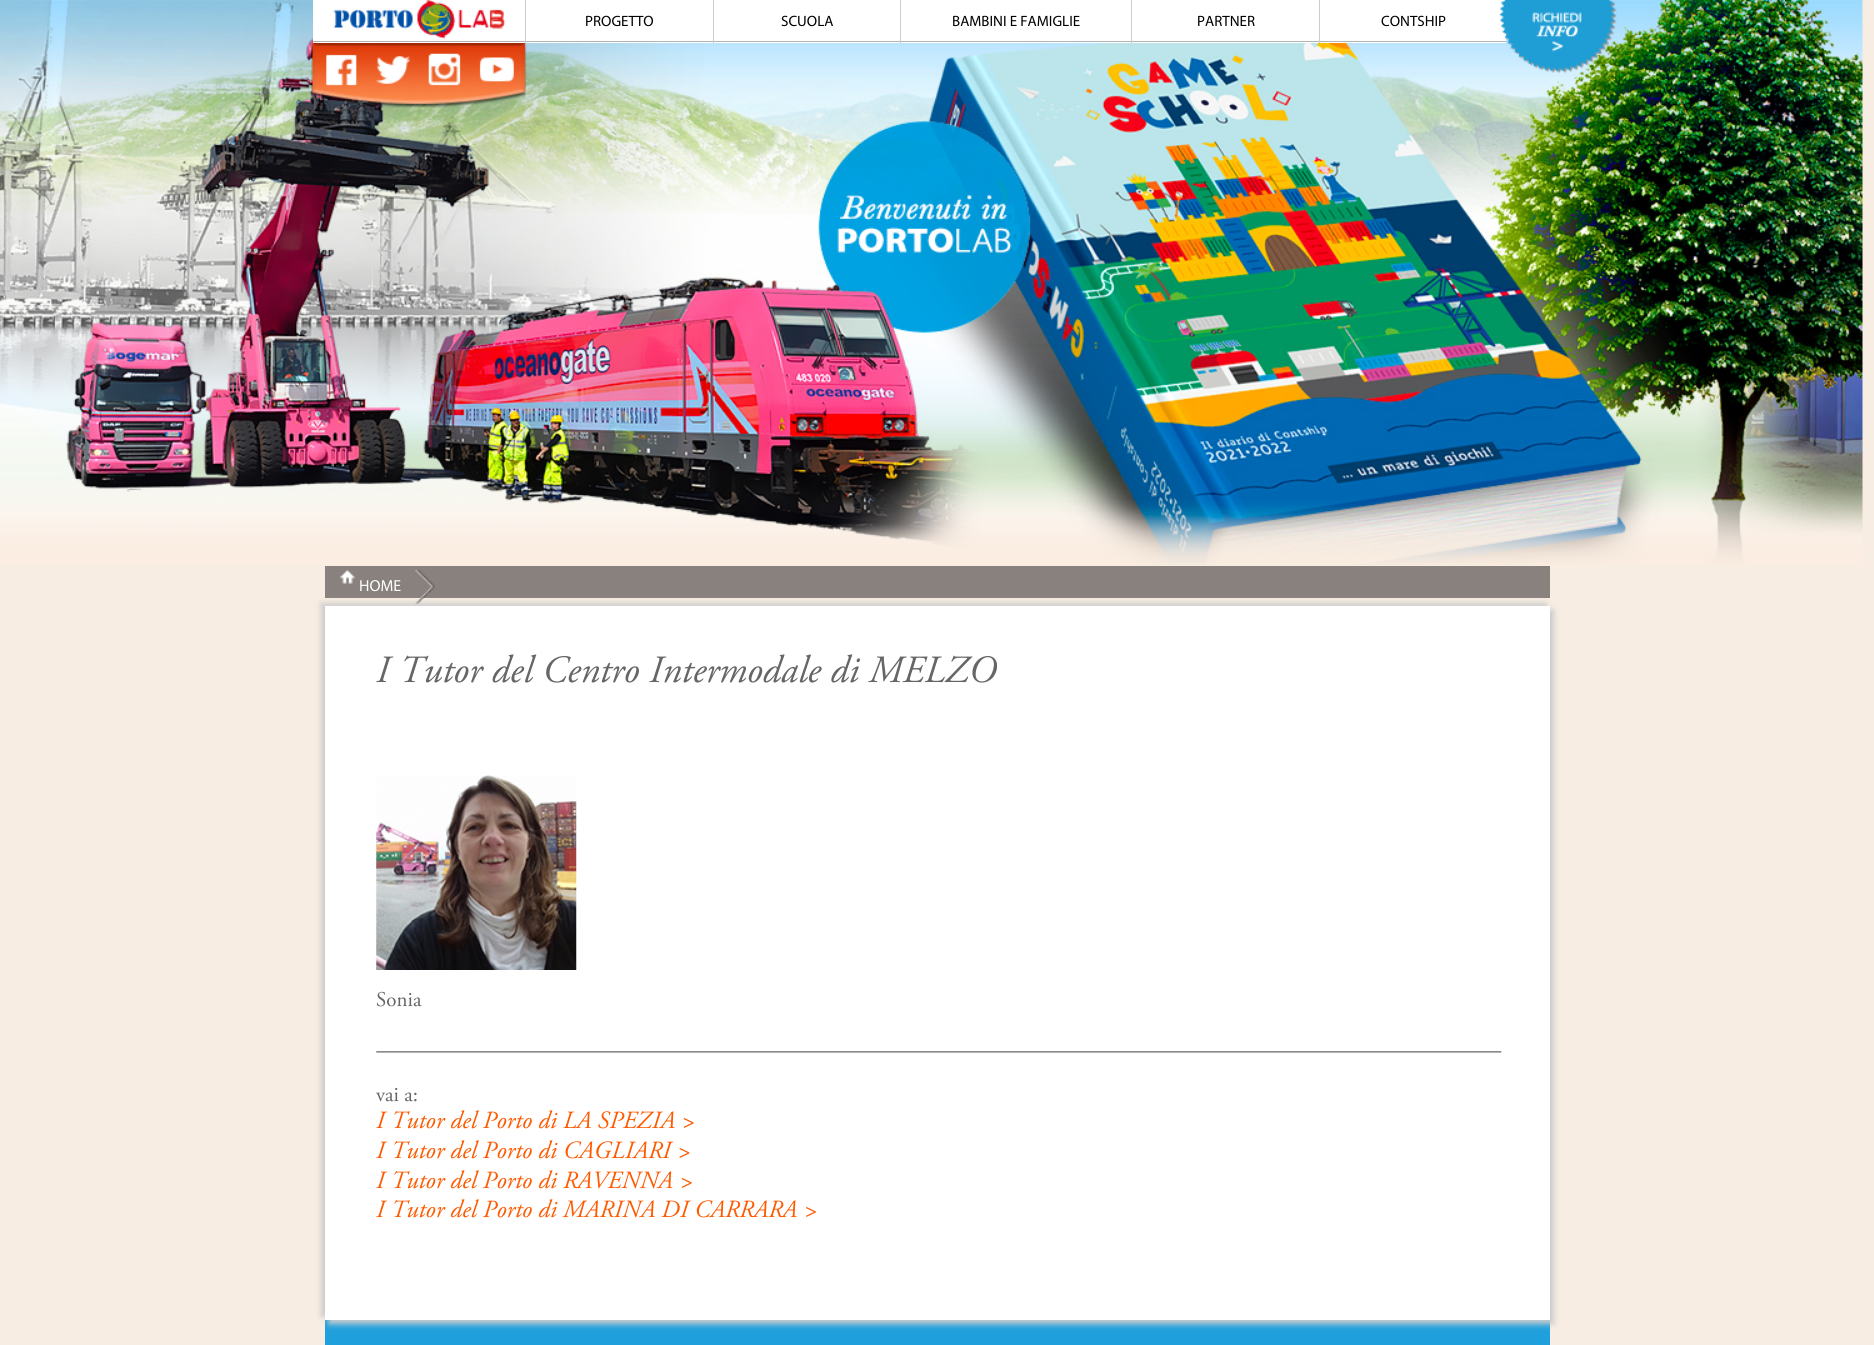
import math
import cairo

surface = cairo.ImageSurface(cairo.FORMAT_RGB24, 1874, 1345)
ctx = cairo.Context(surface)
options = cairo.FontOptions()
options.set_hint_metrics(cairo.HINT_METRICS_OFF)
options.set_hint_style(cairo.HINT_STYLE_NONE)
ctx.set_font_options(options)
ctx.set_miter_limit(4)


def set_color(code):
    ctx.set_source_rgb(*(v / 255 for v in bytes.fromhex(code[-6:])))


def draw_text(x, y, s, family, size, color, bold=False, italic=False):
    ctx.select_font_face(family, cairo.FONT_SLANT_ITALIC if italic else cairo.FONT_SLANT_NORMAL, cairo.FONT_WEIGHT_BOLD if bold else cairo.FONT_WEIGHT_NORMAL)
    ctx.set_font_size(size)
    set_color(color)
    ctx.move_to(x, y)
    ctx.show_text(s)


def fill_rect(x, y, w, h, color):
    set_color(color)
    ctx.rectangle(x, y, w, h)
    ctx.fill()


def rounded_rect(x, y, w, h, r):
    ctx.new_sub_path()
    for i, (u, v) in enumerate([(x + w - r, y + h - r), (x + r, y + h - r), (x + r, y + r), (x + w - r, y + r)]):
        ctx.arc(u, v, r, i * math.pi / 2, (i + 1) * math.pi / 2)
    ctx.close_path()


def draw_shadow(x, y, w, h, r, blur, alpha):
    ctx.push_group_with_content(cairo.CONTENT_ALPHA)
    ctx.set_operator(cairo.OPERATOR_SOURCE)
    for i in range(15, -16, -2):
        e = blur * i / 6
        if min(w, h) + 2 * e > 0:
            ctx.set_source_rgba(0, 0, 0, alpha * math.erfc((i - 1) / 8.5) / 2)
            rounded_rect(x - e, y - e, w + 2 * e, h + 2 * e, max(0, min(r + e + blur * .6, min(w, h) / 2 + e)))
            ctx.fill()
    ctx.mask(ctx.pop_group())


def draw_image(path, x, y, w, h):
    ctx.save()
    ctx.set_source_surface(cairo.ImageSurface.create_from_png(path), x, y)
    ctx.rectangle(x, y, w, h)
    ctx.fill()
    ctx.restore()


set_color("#f8ede2")
ctx.paint()
draw_image("assets/img3.png", 0, 0, 1863, 565)
draw_image("assets/img1.png", 311, 42, 216, 66)
fill_rect(1320, 0, 186, 43, "#ffffff")
fill_rect(1319, 41, 187, 1, "#b2b2b2")
draw_image("assets/img2.png", 1500, 0, 117, 73)
fill_rect(313, 0, 212, 43, "#ffffff")
fill_rect(313, 41, 212, 1, "#b2b2b2")
draw_image("assets/img4.png", 333, 0, 172, 39)
fill_rect(526, 0, 187, 43, "#ffffff")
fill_rect(525, 41, 188, 1, "#b2b2b2")
fill_rect(525, 0, 1, 43, "#cccccc")
draw_text(585, 26, "PROGETTO", "Myriad", 15, "#000000")
fill_rect(714, 0, 186, 43, "#ffffff")
fill_rect(713, 41, 187, 1, "#b2b2b2")
fill_rect(713, 0, 1, 43, "#cccccc")
draw_text(781, 26, "SCUOLA", "Myriad", 15, "#000000")
fill_rect(901, 0, 230, 43, "#ffffff")
fill_rect(900, 41, 231, 1, "#b2b2b2")
fill_rect(900, 0, 1, 43, "#cccccc")
draw_text(952, 26, "BAMBINI E FAMIGLIE", "Myriad", 15, "#000000")
fill_rect(1132, 0, 187, 43, "#ffffff")
fill_rect(1131, 41, 188, 1, "#b2b2b2")
fill_rect(1131, 0, 1, 43, "#cccccc")
draw_text(1197, 26, "PARTNER", "Myriad", 15, "#000000")
fill_rect(1319, 0, 1, 43, "#cccccc")
draw_text(1381, 26, "CONTSHIP", "Myriad", 15, "#000000")
fill_rect(325, 566, 1225, 32, "#88817d")
draw_image("assets/img5.png", 340, 570, 15, 14)
draw_text(359, 591, "HOME", "Myriad", 16, "#ffffff")
draw_image("assets/img6.png", 415, 570, 20, 34)
fill_rect(325, 1320, 1225, 25, "#1fa0dd")
set_color("#cccccc")
draw_shadow(321, 603, 1225, 713, 0, 3, 1)
draw_shadow(329, 610, 1225, 714, 0, 3, 1)
fill_rect(325, 606, 1225, 714, "#ffffff")
draw_text(376, 682, "I Tutor del Centro Intermodale di MELZO", "Adobe Garamond", 38.5, "#666666", italic=True)
draw_image("assets/img7.png", 376, 775, 201, 195)
draw_text(376, 1006, "Sonia", "Adobe Garamond", 21, "#666666")
draw_image("assets/img8.png", 376, 1051, 1126, 2)
draw_text(376, 1101, "vai a:", "Adobe Garamond", 21, "#666666")
draw_text(376, 1128, "I Tutor del Porto di LA SPEZIA >", "Adobe Garamond", 24.75, "#ff5a00", italic=True)
draw_text(376, 1158, "I Tutor del Porto di CAGLIARI >", "Adobe Garamond", 24.75, "#ff5a00", italic=True)
draw_text(376, 1188, "I Tutor del Porto di RAVENNA >", "Adobe Garamond", 24.75, "#ff5a00", italic=True)
draw_text(376, 1217, "I Tutor del Porto di MARINA DI CARRARA >", "Adobe Garamond", 24.75, "#ff5a00", italic=True)
surface.write_to_png("output.png")
